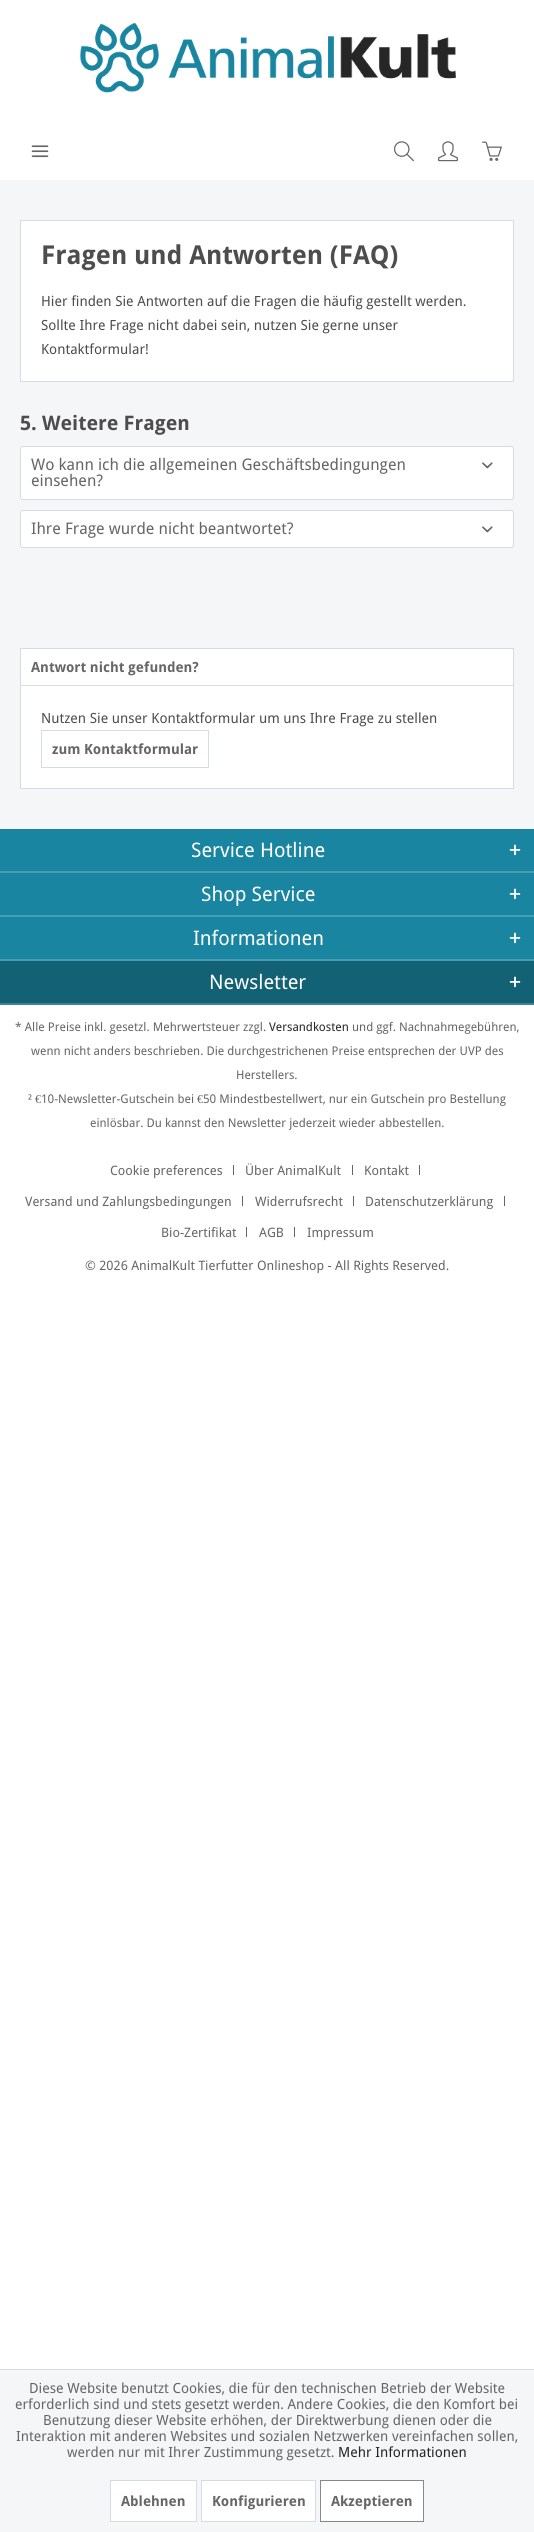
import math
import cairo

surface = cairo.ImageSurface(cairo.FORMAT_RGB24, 534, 2532)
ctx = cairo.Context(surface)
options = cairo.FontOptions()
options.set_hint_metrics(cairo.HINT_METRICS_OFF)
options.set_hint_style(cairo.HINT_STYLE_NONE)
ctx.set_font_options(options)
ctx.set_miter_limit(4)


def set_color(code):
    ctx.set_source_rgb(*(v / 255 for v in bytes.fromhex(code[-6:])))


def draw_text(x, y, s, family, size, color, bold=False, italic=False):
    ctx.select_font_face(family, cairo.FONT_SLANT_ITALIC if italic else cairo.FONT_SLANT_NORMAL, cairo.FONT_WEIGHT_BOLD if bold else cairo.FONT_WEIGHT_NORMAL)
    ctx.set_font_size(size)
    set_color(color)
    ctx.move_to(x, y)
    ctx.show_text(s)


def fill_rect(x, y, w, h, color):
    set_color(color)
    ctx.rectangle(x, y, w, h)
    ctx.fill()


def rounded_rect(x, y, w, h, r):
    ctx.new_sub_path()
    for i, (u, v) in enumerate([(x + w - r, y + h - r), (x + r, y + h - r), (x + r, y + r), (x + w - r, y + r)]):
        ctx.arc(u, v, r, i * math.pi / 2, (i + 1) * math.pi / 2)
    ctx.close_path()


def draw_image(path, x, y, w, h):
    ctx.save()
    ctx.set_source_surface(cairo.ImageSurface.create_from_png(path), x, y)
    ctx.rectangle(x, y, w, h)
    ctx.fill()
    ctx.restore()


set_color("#ffffff")
ctx.paint()
draw_image("assets/img1.png", 79, 22, 377, 71)
draw_image("assets/img2.png", 31, 145, 18, 13)
draw_image("assets/img3.png", 394, 141, 20, 21)
draw_image("assets/img4.png", 438, 141, 20, 21)
draw_image("assets/img5.png", 482, 141, 20, 20)
fill_rect(0, 180, 534, 649, "#f5f6f8")
set_color("#ffffff")
ctx.rectangle(20.5, 220.5, 493, 161)
ctx.fill_preserve()
set_color("#d7dbe3")
ctx.set_line_width(1)
ctx.stroke()
draw_text(41, 264, "Fragen und Antworten (FAQ)", "Droid Sans", 26, "#4d4d4d", bold=True)
draw_text(41, 306, "Hier finden Sie Antworten auf die Fragen die häufig gestellt werden.", "Droid Sans", 14, "#4d4d4d")
draw_text(41, 330, "Sollte Ihre Frage nicht dabei sein, nutzen Sie gerne unser", "Droid Sans", 14, "#4d4d4d")
draw_text(41, 354, "Kontaktformular!", "Droid Sans", 14, "#4d4d4d")
draw_text(20, 430, "5. Weitere Fragen", "Droid Sans", 20, "#4d4d4d", bold=True)
set_color("#ffffff")
rounded_rect(20.5, 446.5, 493, 53, 2.5)
ctx.fill_preserve()
set_color("#d7dbe3")
ctx.stroke()
draw_text(31, 470, "Wo kann ich die allgemeinen Geschäftsbedingungen", "Droid Sans", 16, "#666666")
draw_image("assets/img6.png", 482, 462, 11, 7)
draw_text(31, 486, "einsehen?", "Droid Sans", 16, "#666666")
set_color("#ffffff")
rounded_rect(20.5, 510.5, 493, 37, 2.5)
ctx.fill_preserve()
set_color("#d7dbe3")
ctx.stroke()
draw_text(31, 534, "Ihre Frage wurde nicht beantwortet?", "Droid Sans", 16, "#666666")
draw_image("assets/img6.png", 482, 526, 11, 7)
set_color("#ffffff")
ctx.rectangle(20.5, 648.5, 493, 140)
ctx.fill_preserve()
set_color("#d7dbe3")
ctx.stroke()
fill_rect(21, 685, 492, 1, "#d7dbe3")
draw_text(31, 672, "Antwort nicht gefunden?", "Droid Sans", 14, "#666666", bold=True)
draw_text(41, 723, "Nutzen Sie unser Kontaktformular um uns Ihre Frage zu stellen", "Droid Sans", 14, "#4d4d4d")
ctx.rectangle(41.5, 730.5, 167, 37)
set_color("#d7dbe3")
ctx.stroke()
draw_text(52, 754, "zum Kontaktformular", "Droid Sans", 14, "#666666", bold=True)
fill_rect(0, 829, 534, 130, "#1985a1")
fill_rect(0, 871, 534, 2, "#479db4")
draw_text(191, 857, "Service Hotline", "Droid Sans", 20, "#ffffff")
draw_image("assets/img7.png", 509, 844, 12, 12)
fill_rect(0, 915, 534, 2, "#479db4")
draw_text(201, 901, "Shop Service", "Droid Sans", 20, "#ffffff")
draw_image("assets/img7.png", 509, 888, 12, 12)
fill_rect(0, 959, 534, 2, "#479db4")
draw_text(193, 945, "Informationen", "Droid Sans", 20, "#ffffff")
draw_image("assets/img7.png", 509, 932, 12, 12)
fill_rect(0, 961, 534, 42, "#126175")
fill_rect(0, 1003, 534, 2, "#418191")
draw_text(209, 989, "Newsletter", "Droid Sans", 20, "#ffffff")
draw_image("assets/img8.png", 509, 976, 12, 12)
draw_text(15, 1031, "* Alle Preise inkl. gesetzl. Mehrwertsteuer zzgl.", "Droid Sans", 12, "#666666")
draw_text(269, 1031, "Versandkosten", "Droid Sans", 12, "#262626")
draw_text(352, 1031, "und ggf. Nachnahmegebühren,", "Droid Sans", 12, "#666666")
draw_text(31, 1055, "wenn nicht anders beschrieben. Die durchgestrichenen Preise entsprechen der UVP des", "Droid Sans", 12, "#666666")
draw_text(236, 1079, "Herstellers.", "Droid Sans", 12, "#666666")
draw_text(28, 1103, "²", "Droid Sans", 12, "#666666")
draw_text(35, 1103, "€", "Liberation Serif", 12, "#666666")
draw_text(41, 1103, "10-Newsletter-Gutschein bei", "Droid Sans", 12, "#666666")
draw_text(197, 1103, "€", "Liberation Serif", 12, "#666666")
draw_text(203, 1103, "50 Mindestbestellwert, nur ein Gutschein pro Bestellung", "Droid Sans", 12, "#666666")
draw_text(90, 1127, "einlösbar. Du kannst den Newsletter jederzeit wieder abbestellen.", "Droid Sans", 12, "#666666")
draw_text(110, 1175, "Cookie preferences", "Droid Sans", 13, "#666666")
fill_rect(233, 1165, 1, 10, "#666666")
draw_text(245, 1175, "Über AnimalKult", "Droid Sans", 13, "#666666")
fill_rect(352, 1165, 1, 10, "#666666")
draw_text(364, 1175, "Kontakt", "Droid Sans", 13, "#666666")
fill_rect(419, 1165, 1, 10, "#666666")
draw_text(25, 1206, "Versand und Zahlungsbedingungen", "Droid Sans", 13, "#666666")
fill_rect(242, 1196, 1, 10, "#666666")
draw_text(255, 1206, "Widerrufsrecht", "Droid Sans", 13, "#666666")
fill_rect(353, 1196, 1, 10, "#666666")
draw_text(365, 1206, "Datenschutzerklärung", "Droid Sans", 13, "#666666")
fill_rect(504, 1196, 1, 10, "#666666")
draw_text(161, 1237, "Bio-Zertifikat", "Droid Sans", 13, "#666666")
fill_rect(246, 1227, 1, 10, "#666666")
draw_text(259, 1237, "AGB", "Droid Sans", 13, "#666666")
fill_rect(294, 1227, 1, 10, "#666666")
draw_text(307, 1237, "Impressum", "Droid Sans", 13, "#666666")
draw_text(85, 1270, "© 2026 AnimalKult Tierfutter Onlineshop - All Rights Reserved.", "Droid Sans", 13, "#666666")
fill_rect(0, 2370, 534, 162, "#f5f6f8")
fill_rect(0, 2369, 534, 1, "#d7dbe3")
draw_text(29, 2393, "Diese Website benutzt Cookies, die für den technischen Betrieb der Website", "Droid Sans", 14, "#666666")
draw_text(15, 2409, "erforderlich sind und stets gesetzt werden. Andere Cookies, die den Komfort bei", "Droid Sans", 14, "#666666")
draw_text(43, 2425, "Benutzung dieser Website erhöhen, der Direktwerbung dienen oder die", "Droid Sans", 14, "#666666")
draw_text(16, 2441, "Interaktion mit anderen Websites und sozialen Netzwerken vereinfachen sollen,", "Droid Sans", 14, "#666666")
draw_text(67, 2457, "werden nur mit Ihrer Zustimmung gesetzt.", "Droid Sans", 14, "#666666")
draw_text(338, 2457, "Mehr Informationen", "Droid Sans", 14, "#262626")
set_color("#ffffff")
ctx.rectangle(110.5, 2480.5, 86, 41)
ctx.fill_preserve()
set_color("#d7dbe3")
ctx.stroke()
draw_text(121, 2506, "Ablehnen", "Droid Sans", 14, "#666666", bold=True)
set_color("#ffffff")
ctx.rectangle(201.5, 2480.5, 114, 41)
ctx.fill_preserve()
set_color("#d7dbe3")
ctx.stroke()
draw_text(212, 2506, "Konfigurieren", "Droid Sans", 14, "#666666", bold=True)
set_color("#ffffff")
ctx.rectangle(320.5, 2480.5, 103, 41)
ctx.fill_preserve()
set_color("#888888")
ctx.stroke()
draw_text(331, 2506, "Akzeptieren", "Droid Sans", 14, "#666666", bold=True)
surface.write_to_png("output.png")
